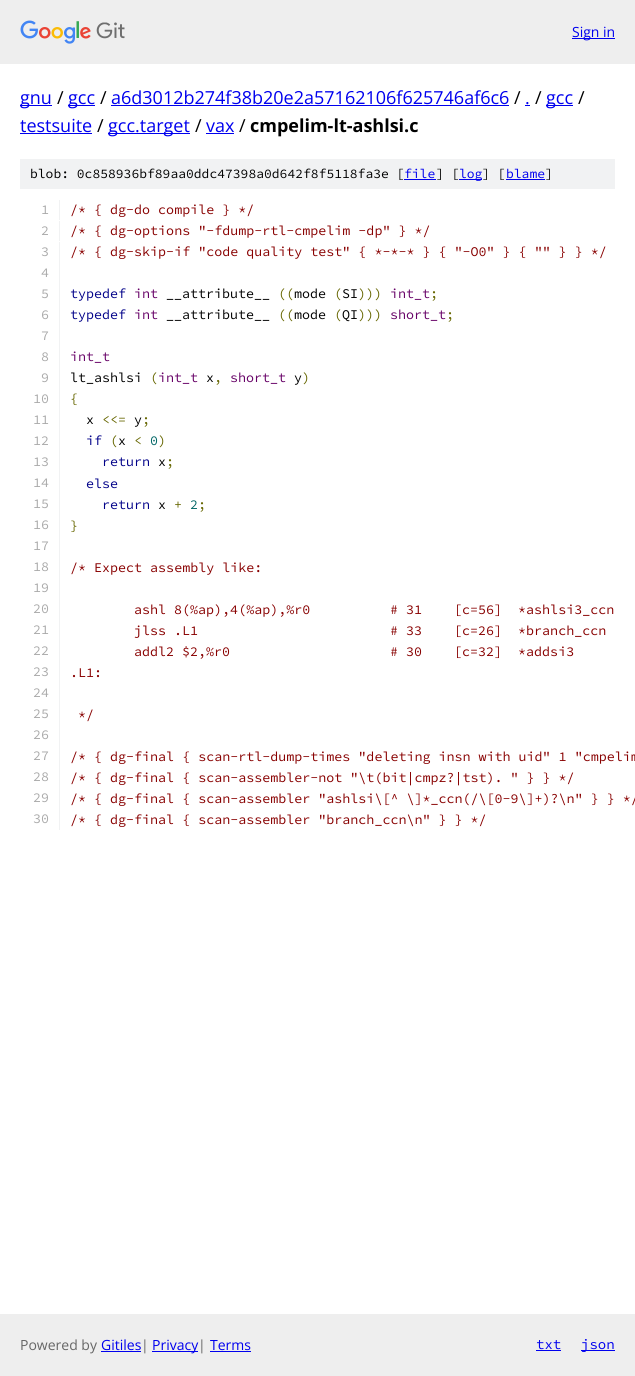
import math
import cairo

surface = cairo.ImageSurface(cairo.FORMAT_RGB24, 635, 1376)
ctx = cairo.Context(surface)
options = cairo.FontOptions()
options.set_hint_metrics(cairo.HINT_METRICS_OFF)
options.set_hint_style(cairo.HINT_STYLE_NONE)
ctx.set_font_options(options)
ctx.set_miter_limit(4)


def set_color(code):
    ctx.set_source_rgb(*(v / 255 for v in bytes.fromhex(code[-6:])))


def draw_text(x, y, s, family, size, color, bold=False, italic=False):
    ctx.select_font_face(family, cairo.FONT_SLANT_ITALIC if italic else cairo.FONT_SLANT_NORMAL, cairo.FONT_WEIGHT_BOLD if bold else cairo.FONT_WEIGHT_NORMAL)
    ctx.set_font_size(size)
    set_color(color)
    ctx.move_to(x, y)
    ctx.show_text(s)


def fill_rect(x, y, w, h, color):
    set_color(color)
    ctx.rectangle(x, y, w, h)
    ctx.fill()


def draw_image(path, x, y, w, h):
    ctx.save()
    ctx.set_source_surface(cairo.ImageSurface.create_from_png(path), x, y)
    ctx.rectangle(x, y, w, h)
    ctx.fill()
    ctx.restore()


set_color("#ffffff")
ctx.paint()
fill_rect(0, 0, 635, 64, "#eeeeee")
draw_image("assets/img1.png", 20, 20, 105, 24)
fill_rect(572, 38, 43, 1, "#0000ee")
draw_text(572, 37, "Sign in", "Open Sans", 14, "#0000ee")
fill_rect(20, 105, 32, 1, "#0000ee")
draw_text(20, 104, "gnu", "Open Sans", 18, "#0000ee")
draw_text(57, 104, "/", "Open Sans", 18, "#000000")
fill_rect(68, 105, 27, 1, "#0000ee")
draw_text(68, 104, "gcc", "Open Sans", 18, "#0000ee")
draw_text(100, 104, "/", "Open Sans", 18, "#000000")
draw_text(111, 104, "a6d3012b274f38b20e2a57162106f625746af6c6", "Open Sans", 18, "#0000ee")
fill_rect(111, 105, 398, 1, "#0000ee")
draw_text(514, 104, "/", "Open Sans", 18, "#000000")
draw_text(525, 104, ".", "Open Sans", 18, "#0000ee")
fill_rect(525, 105, 5, 1, "#0000ee")
draw_text(535, 104, "/", "Open Sans", 18, "#000000")
fill_rect(546, 105, 27, 1, "#0000ee")
draw_text(546, 104, "gcc", "Open Sans", 18, "#0000ee")
draw_text(578, 104, "/", "Open Sans", 18, "#000000")
draw_text(20, 132, "testsuite", "Open Sans", 18, "#0000ee")
fill_rect(20, 133, 72, 1, "#0000ee")
draw_text(97, 132, "/", "Open Sans", 18, "#000000")
fill_rect(108, 133, 82, 1, "#0000ee")
draw_text(108, 132, "gcc.target", "Open Sans", 18, "#0000ee")
draw_text(195, 132, "/", "Open Sans", 18, "#000000")
draw_text(206, 132, "vax", "Open Sans", 18, "#0000ee")
fill_rect(206, 133, 28, 1, "#0000ee")
draw_text(239, 132, "/", "Open Sans", 18, "#000000")
draw_text(250, 132, "cmpelim-lt-ashlsi.c", "Open Sans", 18, "#000000", bold=True)
fill_rect(20, 159, 595, 30, "#f1f2f3")
draw_text(30, 178, "blob: 0c858936bf89aa0ddc47398a0d642f8f5118fa3e [", "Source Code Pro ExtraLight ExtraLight", 13, "#000000")
draw_text(404, 178, "file", "Source Code Pro ExtraLight ExtraLight", 13, "#0000ee")
fill_rect(404, 179, 32, 1, "#0000ee")
draw_text(436, 178, "] [", "Source Code Pro ExtraLight ExtraLight", 13, "#000000")
fill_rect(459, 179, 23, 1, "#0000ee")
draw_text(459, 178, "log", "Source Code Pro ExtraLight ExtraLight", 13, "#0000ee")
draw_text(482, 178, "] [", "Source Code Pro ExtraLight ExtraLight", 13, "#000000")
draw_text(506, 178, "blame", "Source Code Pro ExtraLight ExtraLight", 13, "#0000ee")
fill_rect(506, 179, 39, 1, "#0000ee")
draw_text(545, 178, "]", "Source Code Pro ExtraLight ExtraLight", 13, "#000000")
fill_rect(59, 200, 1, 20, "#f1f2f3")
draw_text(41, 214, "1", "Source Code Pro ExtraLight ExtraLight", 13.35, "#aaaaaa")
draw_text(70, 214, "/* { dg-do compile } */", "Source Code Pro ExtraLight ExtraLight", 13.35, "#880000")
fill_rect(59, 221, 1, 20, "#f1f2f3")
draw_text(41, 235, "2", "Source Code Pro ExtraLight ExtraLight", 13.35, "#aaaaaa")
draw_text(70, 235, "/* { dg-options \"-fdump-rtl-cmpelim -dp\" } */", "Source Code Pro ExtraLight ExtraLight", 13.35, "#880000")
fill_rect(59, 242, 1, 588, "#f1f2f3")
draw_text(41, 256, "3", "Source Code Pro ExtraLight ExtraLight", 13.35, "#aaaaaa")
draw_text(70, 256, "/* { dg-skip-if \"code quality test\" { *-*-* } { \"-O0\" } { \"\" } } */", "Source Code Pro ExtraLight ExtraLight", 13.35, "#880000")
draw_text(41, 277, "4", "Source Code Pro ExtraLight ExtraLight", 13.35, "#aaaaaa")
draw_text(41, 298, "5", "Source Code Pro ExtraLight ExtraLight", 13.35, "#aaaaaa")
draw_text(70, 298, "typedef", "Source Code Pro ExtraLight ExtraLight", 13.35, "#000088")
draw_text(134, 298, "int", "Source Code Pro ExtraLight ExtraLight", 13.35, "#660066")
draw_text(166, 298, "__attribute__", "Source Code Pro ExtraLight ExtraLight", 13.35, "#000000")
draw_text(278, 298, "((", "Source Code Pro ExtraLight ExtraLight", 13.35, "#666600")
draw_text(294, 298, "mode", "Source Code Pro ExtraLight ExtraLight", 13.35, "#000000")
draw_text(334, 298, "(", "Source Code Pro ExtraLight ExtraLight", 13.35, "#666600")
draw_text(342, 298, "SI", "Source Code Pro ExtraLight ExtraLight", 13.35, "#000000")
draw_text(358, 298, ")))", "Source Code Pro ExtraLight ExtraLight", 13.35, "#666600")
draw_text(390, 298, "int_t", "Source Code Pro ExtraLight ExtraLight", 13.35, "#660066")
draw_text(430, 298, ";", "Source Code Pro ExtraLight ExtraLight", 13.35, "#666600")
draw_text(41, 319, "6", "Source Code Pro ExtraLight ExtraLight", 13.35, "#aaaaaa")
draw_text(70, 319, "typedef", "Source Code Pro ExtraLight ExtraLight", 13.35, "#000088")
draw_text(134, 319, "int", "Source Code Pro ExtraLight ExtraLight", 13.35, "#660066")
draw_text(166, 319, "__attribute__", "Source Code Pro ExtraLight ExtraLight", 13.35, "#000000")
draw_text(278, 319, "((", "Source Code Pro ExtraLight ExtraLight", 13.35, "#666600")
draw_text(294, 319, "mode", "Source Code Pro ExtraLight ExtraLight", 13.35, "#000000")
draw_text(334, 319, "(", "Source Code Pro ExtraLight ExtraLight", 13.35, "#666600")
draw_text(342, 319, "QI", "Source Code Pro ExtraLight ExtraLight", 13.35, "#000000")
draw_text(358, 319, ")))", "Source Code Pro ExtraLight ExtraLight", 13.35, "#666600")
draw_text(390, 319, "short_t", "Source Code Pro ExtraLight ExtraLight", 13.35, "#660066")
draw_text(446, 319, ";", "Source Code Pro ExtraLight ExtraLight", 13.35, "#666600")
draw_text(41, 340, "7", "Source Code Pro ExtraLight ExtraLight", 13.35, "#aaaaaa")
draw_text(41, 361, "8", "Source Code Pro ExtraLight ExtraLight", 13.35, "#aaaaaa")
draw_text(70, 361, "int_t", "Source Code Pro ExtraLight ExtraLight", 13.35, "#660066")
draw_text(41, 382, "9", "Source Code Pro ExtraLight ExtraLight", 13.35, "#aaaaaa")
draw_text(70, 382, "lt_ashlsi", "Source Code Pro ExtraLight ExtraLight", 13.35, "#000000")
draw_text(150, 382, "(", "Source Code Pro ExtraLight ExtraLight", 13.35, "#666600")
draw_text(158, 382, "int_t", "Source Code Pro ExtraLight ExtraLight", 13.35, "#660066")
draw_text(206, 382, "x", "Source Code Pro ExtraLight ExtraLight", 13.35, "#000000")
draw_text(214, 382, ",", "Source Code Pro ExtraLight ExtraLight", 13.35, "#666600")
draw_text(230, 382, "short_t", "Source Code Pro ExtraLight ExtraLight", 13.35, "#660066")
draw_text(294, 382, "y", "Source Code Pro ExtraLight ExtraLight", 13.35, "#000000")
draw_text(302, 382, ")", "Source Code Pro ExtraLight ExtraLight", 13.35, "#666600")
draw_text(33, 403, "10", "Source Code Pro ExtraLight ExtraLight", 13.35, "#aaaaaa")
draw_text(70, 403, "{", "Source Code Pro ExtraLight ExtraLight", 13.35, "#666600")
draw_text(33, 424, "11", "Source Code Pro ExtraLight ExtraLight", 13.35, "#aaaaaa")
draw_text(86, 424, "x", "Source Code Pro ExtraLight ExtraLight", 13.35, "#000000")
draw_text(102, 424, "<<=", "Source Code Pro ExtraLight ExtraLight", 13.35, "#666600")
draw_text(134, 424, "y", "Source Code Pro ExtraLight ExtraLight", 13.35, "#000000")
draw_text(142, 424, ";", "Source Code Pro ExtraLight ExtraLight", 13.35, "#666600")
draw_text(33, 445, "12", "Source Code Pro ExtraLight ExtraLight", 13.35, "#aaaaaa")
draw_text(86, 445, "if", "Source Code Pro ExtraLight ExtraLight", 13.35, "#000088")
draw_text(110, 445, "(", "Source Code Pro ExtraLight ExtraLight", 13.35, "#666600")
draw_text(118, 445, "x", "Source Code Pro ExtraLight ExtraLight", 13.35, "#000000")
draw_text(134, 445, "<", "Source Code Pro ExtraLight ExtraLight", 13.35, "#666600")
draw_text(150, 445, "0", "Source Code Pro ExtraLight ExtraLight", 13.35, "#006666")
draw_text(158, 445, ")", "Source Code Pro ExtraLight ExtraLight", 13.35, "#666600")
draw_text(33, 466, "13", "Source Code Pro ExtraLight ExtraLight", 13.35, "#aaaaaa")
draw_text(102, 466, "return", "Source Code Pro ExtraLight ExtraLight", 13.35, "#000088")
draw_text(158, 466, "x", "Source Code Pro ExtraLight ExtraLight", 13.35, "#000000")
draw_text(166, 466, ";", "Source Code Pro ExtraLight ExtraLight", 13.35, "#666600")
draw_text(33, 487, "14", "Source Code Pro ExtraLight ExtraLight", 13.35, "#aaaaaa")
draw_text(86, 488, "else", "Source Code Pro ExtraLight ExtraLight", 13.35, "#000088")
draw_text(33, 508, "15", "Source Code Pro ExtraLight ExtraLight", 13.35, "#aaaaaa")
draw_text(102, 509, "return", "Source Code Pro ExtraLight ExtraLight", 13.35, "#000088")
draw_text(158, 509, "x", "Source Code Pro ExtraLight ExtraLight", 13.35, "#000000")
draw_text(174, 509, "+", "Source Code Pro ExtraLight ExtraLight", 13.35, "#666600")
draw_text(190, 509, "2", "Source Code Pro ExtraLight ExtraLight", 13.35, "#006666")
draw_text(198, 509, ";", "Source Code Pro ExtraLight ExtraLight", 13.35, "#666600")
draw_text(33, 529, "16", "Source Code Pro ExtraLight ExtraLight", 13.35, "#aaaaaa")
draw_text(70, 530, "}", "Source Code Pro ExtraLight ExtraLight", 13.35, "#666600")
draw_text(33, 550, "17", "Source Code Pro ExtraLight ExtraLight", 13.35, "#aaaaaa")
draw_text(33, 571, "18", "Source Code Pro ExtraLight ExtraLight", 13.35, "#aaaaaa")
draw_text(70, 572, "/* Expect assembly like:", "Source Code Pro ExtraLight ExtraLight", 13.35, "#880000")
draw_text(33, 592, "19", "Source Code Pro ExtraLight ExtraLight", 13.35, "#aaaaaa")
draw_text(33, 613, "20", "Source Code Pro ExtraLight ExtraLight", 13.35, "#aaaaaa")
draw_text(134, 614, "ashl 8(%ap),4(%ap),%r0", "Source Code Pro ExtraLight ExtraLight", 13.35, "#880000")
draw_text(390, 614, "# 31", "Source Code Pro ExtraLight ExtraLight", 13.35, "#880000")
draw_text(454, 614, "[c=56]  *ashlsi3_ccn", "Source Code Pro ExtraLight ExtraLight", 13.35, "#880000")
draw_text(33, 634, "21", "Source Code Pro ExtraLight ExtraLight", 13.35, "#aaaaaa")
draw_text(134, 635, "jlss .L1", "Source Code Pro ExtraLight ExtraLight", 13.35, "#880000")
draw_text(390, 635, "# 33", "Source Code Pro ExtraLight ExtraLight", 13.35, "#880000")
draw_text(454, 635, "[c=26]  *branch_ccn", "Source Code Pro ExtraLight ExtraLight", 13.35, "#880000")
draw_text(33, 655, "22", "Source Code Pro ExtraLight ExtraLight", 13.35, "#aaaaaa")
draw_text(134, 656, "addl2 $2,%r0", "Source Code Pro ExtraLight ExtraLight", 13.35, "#880000")
draw_text(390, 656, "# 30", "Source Code Pro ExtraLight ExtraLight", 13.35, "#880000")
draw_text(454, 656, "[c=32]  *addsi3", "Source Code Pro ExtraLight ExtraLight", 13.35, "#880000")
draw_text(33, 676, "23", "Source Code Pro ExtraLight ExtraLight", 13.35, "#aaaaaa")
draw_text(70, 677, ".L1:", "Source Code Pro ExtraLight ExtraLight", 13.35, "#880000")
draw_text(33, 697, "24", "Source Code Pro ExtraLight ExtraLight", 13.35, "#aaaaaa")
draw_text(33, 718, "25", "Source Code Pro ExtraLight ExtraLight", 13.35, "#aaaaaa")
draw_text(78, 719, "*/", "Source Code Pro ExtraLight ExtraLight", 13.35, "#880000")
draw_text(33, 739, "26", "Source Code Pro ExtraLight ExtraLight", 13.35, "#aaaaaa")
draw_text(33, 760, "27", "Source Code Pro ExtraLight ExtraLight", 13.35, "#aaaaaa")
draw_text(70, 761, "/* { dg-final { scan-rtl-dump-times \"deleting insn with uid\" 1 \"cmpelim", "Source Code Pro ExtraLight ExtraLight", 13.35, "#880000")
draw_text(33, 781, "28", "Source Code Pro ExtraLight ExtraLight", 13.35, "#aaaaaa")
draw_text(70, 782, "/* { dg-final { scan-assembler-not \"\\t(bit|cmpz?|tst). \" } } */", "Source Code Pro ExtraLight ExtraLight", 13.35, "#880000")
draw_text(33, 802, "29", "Source Code Pro ExtraLight ExtraLight", 13.35, "#aaaaaa")
draw_text(70, 803, "/* { dg-final { scan-assembler \"ashlsi\\[^ \\]*_ccn(/\\[0-9\\]+)?\\n\" } } */", "Source Code Pro ExtraLight ExtraLight", 13.35, "#880000")
draw_text(33, 823, "30", "Source Code Pro ExtraLight ExtraLight", 13.35, "#aaaaaa")
draw_text(70, 824, "/* { dg-final { scan-assembler \"branch_ccn\\n\" } } */", "Source Code Pro ExtraLight ExtraLight", 13.35, "#880000")
fill_rect(0, 1314, 635, 62, "#eeeeee")
draw_text(20, 1350, "Powered by", "Open Sans", 14, "#666666")
draw_text(101, 1350, "Gitiles", "Open Sans", 14, "#0000ee")
fill_rect(101, 1351, 40, 1, "#0000ee")
draw_text(141, 1350, "|", "Open Sans", 14, "#666666")
fill_rect(152, 1351, 46, 1, "#0000ee")
draw_text(152, 1350, "Privacy", "Open Sans", 14, "#0000ee")
draw_text(198, 1350, "|", "Open Sans", 14, "#666666")
draw_text(210, 1350, "Terms", "Open Sans", 14, "#0000ee")
fill_rect(210, 1351, 41, 1, "#0000ee")
draw_text(536, 1349, "txt", "Source Code Pro ExtraLight ExtraLight", 14, "#0000ee")
fill_rect(536, 1350, 25, 1, "#0000ee")
fill_rect(581, 1350, 34, 1, "#0000ee")
draw_text(581, 1349, "json", "Source Code Pro ExtraLight ExtraLight", 14, "#0000ee")
surface.write_to_png("output.png")
